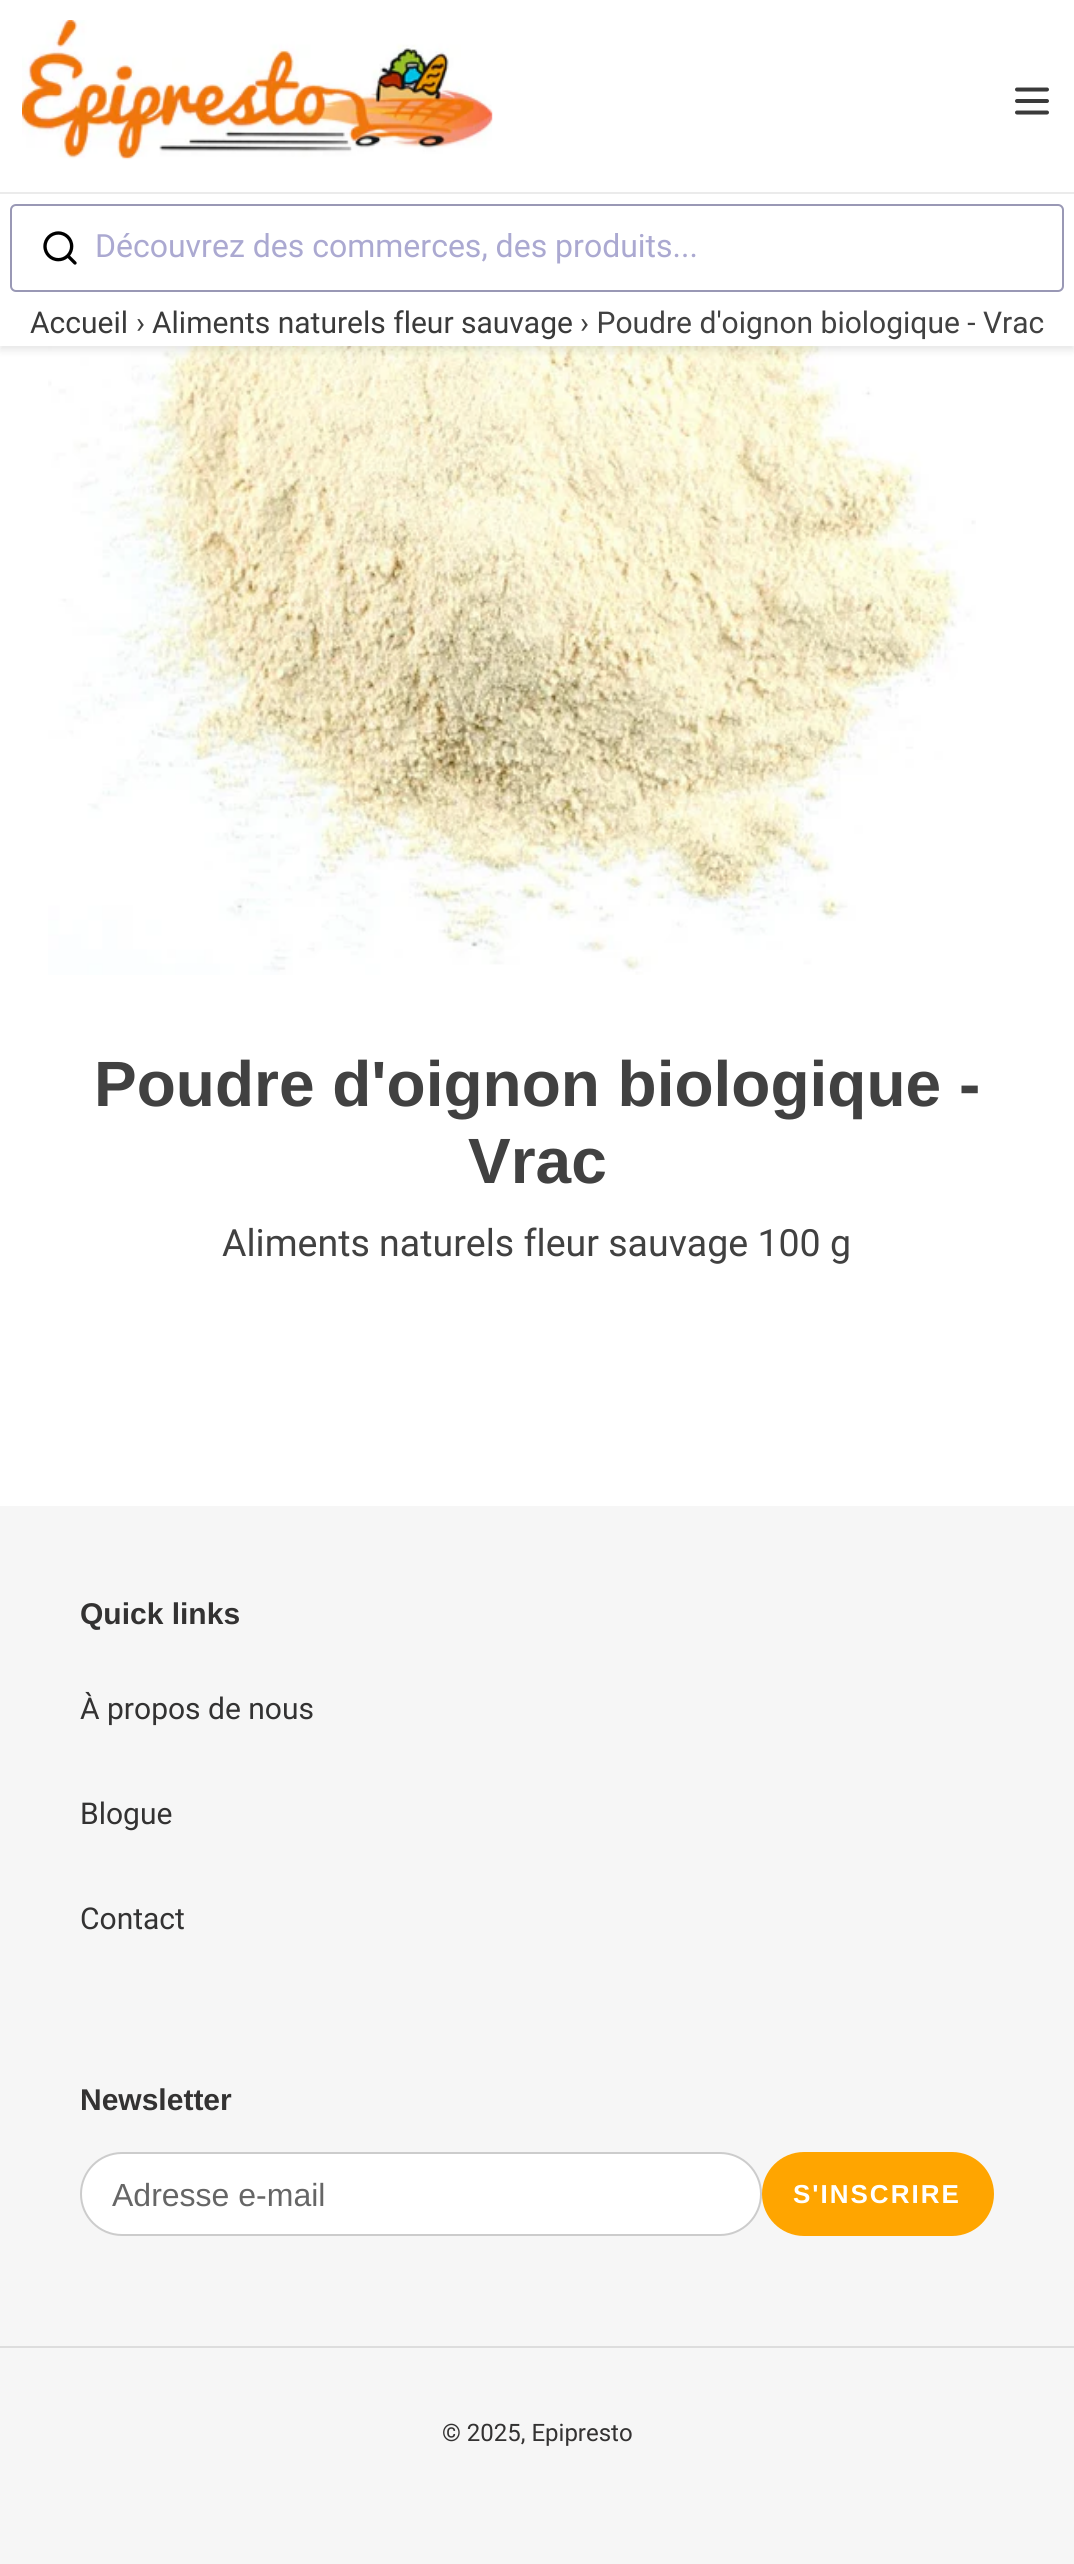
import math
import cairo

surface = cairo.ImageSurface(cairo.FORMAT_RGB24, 1074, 2564)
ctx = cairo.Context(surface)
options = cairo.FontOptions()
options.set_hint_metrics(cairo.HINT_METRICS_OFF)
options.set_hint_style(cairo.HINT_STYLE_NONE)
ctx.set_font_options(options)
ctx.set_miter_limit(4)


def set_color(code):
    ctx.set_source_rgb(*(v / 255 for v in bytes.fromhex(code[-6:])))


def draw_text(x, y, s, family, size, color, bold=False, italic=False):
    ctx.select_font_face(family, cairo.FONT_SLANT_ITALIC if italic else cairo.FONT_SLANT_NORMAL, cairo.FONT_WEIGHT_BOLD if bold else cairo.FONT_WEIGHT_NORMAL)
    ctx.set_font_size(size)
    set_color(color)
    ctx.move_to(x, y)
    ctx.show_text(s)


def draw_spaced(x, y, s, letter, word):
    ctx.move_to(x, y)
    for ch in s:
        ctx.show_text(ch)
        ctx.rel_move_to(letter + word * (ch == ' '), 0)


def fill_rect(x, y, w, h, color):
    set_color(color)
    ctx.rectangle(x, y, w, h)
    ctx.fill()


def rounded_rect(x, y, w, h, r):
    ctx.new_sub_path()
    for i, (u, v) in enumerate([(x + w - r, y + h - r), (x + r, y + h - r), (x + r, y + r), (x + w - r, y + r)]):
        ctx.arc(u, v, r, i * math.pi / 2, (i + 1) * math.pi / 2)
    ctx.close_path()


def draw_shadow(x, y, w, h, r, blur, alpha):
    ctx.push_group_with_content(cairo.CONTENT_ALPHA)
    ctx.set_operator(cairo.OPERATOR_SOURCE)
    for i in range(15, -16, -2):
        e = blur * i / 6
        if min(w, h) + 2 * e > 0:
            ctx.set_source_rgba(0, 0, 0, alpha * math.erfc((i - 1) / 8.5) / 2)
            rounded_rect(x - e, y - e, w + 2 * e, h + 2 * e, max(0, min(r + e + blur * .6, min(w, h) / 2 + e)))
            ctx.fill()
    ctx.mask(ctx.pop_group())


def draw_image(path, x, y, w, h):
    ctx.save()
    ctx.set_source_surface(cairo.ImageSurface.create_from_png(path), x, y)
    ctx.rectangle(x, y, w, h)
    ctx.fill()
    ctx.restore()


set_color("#ffffff")
ctx.paint()
draw_image("assets/img4.png", 48, 346, 928, 629)
set_color("#000000")
draw_shadow(0, 4, 1074, 346, 0, 4, 0.1)
fill_rect(0, 0, 1074, 346, "#ffffff")
fill_rect(0, 192, 1074, 2, "#ebebeb")
draw_image("assets/img1.png", 22, 20, 471, 140)
draw_image("assets/img2.png", 1015, 87, 34, 28)
rounded_rect(11, 205, 1052, 86, 5)
set_color("#9998b5")
ctx.stroke()
draw_image("assets/img3.png", 43, 231, 34, 34)
draw_text(95, 257, "Découvrez des commerces, des produits...", "Roboto", 32, "#aba9d1")
draw_text(30, 333, "Accueil", "Roboto", 30, "#3a3a3a")
draw_text(136, 333, "›", "Roboto", 30, "#414141")
draw_text(152, 333, "Aliments naturels fleur sauvage", "Roboto", 30, "#3a3a3a")
draw_text(580, 333, "› Poudre d'oignon biologique - Vrac", "Roboto", 30, "#414141")
draw_text(94, 1106, "Poudre d'oignon biologique -", "Liberation Sans", 64, "#414141", bold=True)
draw_text(468, 1183, "Vrac", "Liberation Sans", 64, "#414141", bold=True)
draw_text(222, 1256, "Aliments naturels fleur sauvage 100 g", "Roboto", 37.5, "#414141")
fill_rect(0, 1506, 1074, 1058, "#f6f6f6")
draw_text(80, 1624, "Quick links", "Liberation Sans", 30, "#333232", bold=True)
draw_text(80, 1719, "À propos de nous", "Roboto", 30, "#333232")
draw_text(80, 1824, "Blogue", "Roboto", 30, "#333232")
draw_text(80, 1929, "Contact", "Roboto", 30, "#333232")
draw_text(80, 2110, "Newsletter", "Liberation Sans", 30, "#333232", bold=True)
set_color("#ffffff")
rounded_rect(81, 2153, 680, 82, 41)
ctx.fill_preserve()
set_color("#cccccc")
ctx.stroke()
draw_text(112, 2206, "Adresse e-mail", "Liberation Sans", 32, "#666666")
set_color("#ffa500")
rounded_rect(762, 2152, 232, 84, 42)
ctx.fill()
ctx.select_font_face("Liberation Sans", cairo.FONT_SLANT_NORMAL, cairo.FONT_WEIGHT_BOLD)
ctx.set_font_size(26)
set_color("#ffffff")
draw_spaced(793, 2203, "S'INSCRIRE", 2, 0)
fill_rect(0, 2346, 1074, 2, "#dddddd")
draw_text(442, 2441, "© 2025, Epipresto", "Roboto", 24, "#333232")
surface.write_to_png("output.png")
